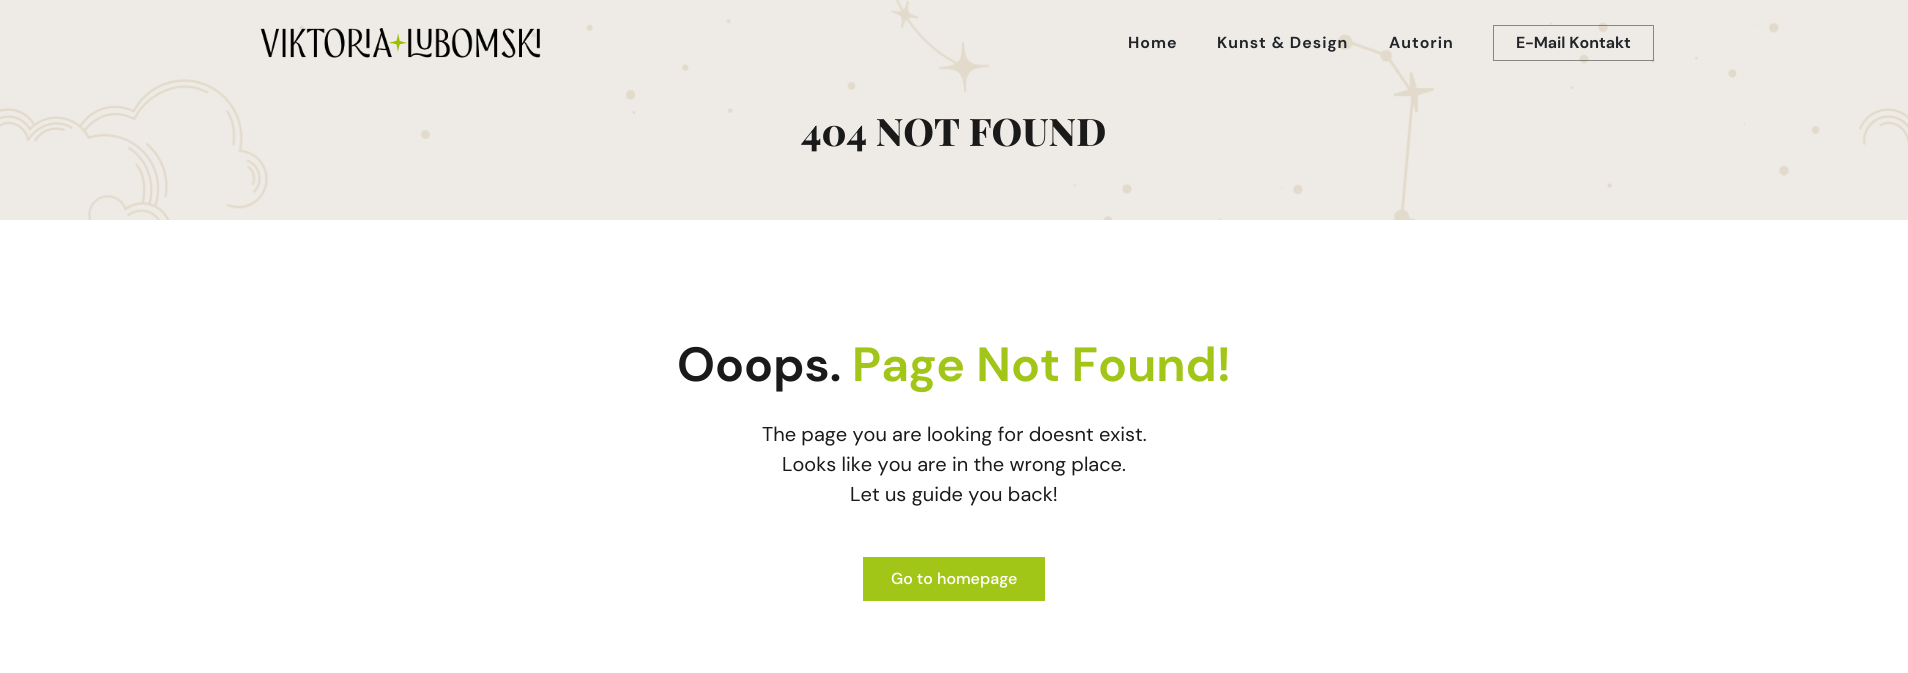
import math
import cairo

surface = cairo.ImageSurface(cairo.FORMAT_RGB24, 1908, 673)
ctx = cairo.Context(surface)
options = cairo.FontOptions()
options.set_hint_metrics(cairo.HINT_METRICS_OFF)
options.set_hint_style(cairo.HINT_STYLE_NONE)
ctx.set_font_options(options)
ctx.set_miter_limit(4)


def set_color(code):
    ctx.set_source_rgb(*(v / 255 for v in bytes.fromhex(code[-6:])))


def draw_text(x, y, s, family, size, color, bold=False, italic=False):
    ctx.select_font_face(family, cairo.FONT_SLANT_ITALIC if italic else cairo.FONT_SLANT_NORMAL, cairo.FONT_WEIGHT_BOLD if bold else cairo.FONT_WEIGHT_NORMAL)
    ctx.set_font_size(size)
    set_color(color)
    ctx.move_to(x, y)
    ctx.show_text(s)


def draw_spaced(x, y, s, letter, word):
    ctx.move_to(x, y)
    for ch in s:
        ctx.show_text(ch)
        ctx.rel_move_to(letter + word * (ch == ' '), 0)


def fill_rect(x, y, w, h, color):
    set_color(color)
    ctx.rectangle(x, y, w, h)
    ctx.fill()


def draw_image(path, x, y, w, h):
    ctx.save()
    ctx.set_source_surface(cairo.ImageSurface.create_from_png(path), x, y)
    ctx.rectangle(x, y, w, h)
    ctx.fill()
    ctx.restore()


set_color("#ffffff")
ctx.paint()
fill_rect(0, 0, 1908, 220, "#eeebe6")
draw_image("assets/img2.png", 0, 0, 1908, 220)
draw_image("assets/img1.png", 260, 27, 281, 31)
ctx.select_font_face("DM Sans", cairo.FONT_SLANT_NORMAL, cairo.FONT_WEIGHT_BOLD)
ctx.set_font_size(16)
set_color("#212529")
draw_spaced(1128, 48, "Home", 1, 0)
draw_spaced(1217, 48, "Kunst & Design", 1, 0)
draw_spaced(1389, 48, "Autorin", 1, 0)
ctx.rectangle(1493.5, 25.5, 160, 35)
ctx.set_source_rgba(0.129, 0.145, 0.161, 0.5)
ctx.set_line_width(1)
ctx.stroke()
draw_text(1516, 48, "E-Mail Kontakt", "DM Sans", 16, "#212529", bold=True)
draw_text(801, 146, "404 NOT FOUND", "Playfair Display ExtraBold", 38, "#1a1a1a")
draw_text(677, 381, "Ooops.", "DM Sans", 48, "#1a1a1a", bold=True)
draw_text(852, 381, "Page Not Found!", "DM Sans", 48, "#a2c617", bold=True)
draw_text(762, 441, "The page you are looking for doesnt exist.", "DM Sans", 20, "#1a1a1a")
draw_text(782, 471, "Looks like you are in the wrong place.", "DM Sans", 20, "#1a1a1a")
draw_text(850, 501, "Let us guide you back!", "DM Sans", 20, "#1a1a1a")
fill_rect(863, 557, 182, 44, "#a2c617")
draw_text(891, 584, "Go to homepage", "DM Sans Medium", 16, "#ffffff")
surface.write_to_png("output.png")
